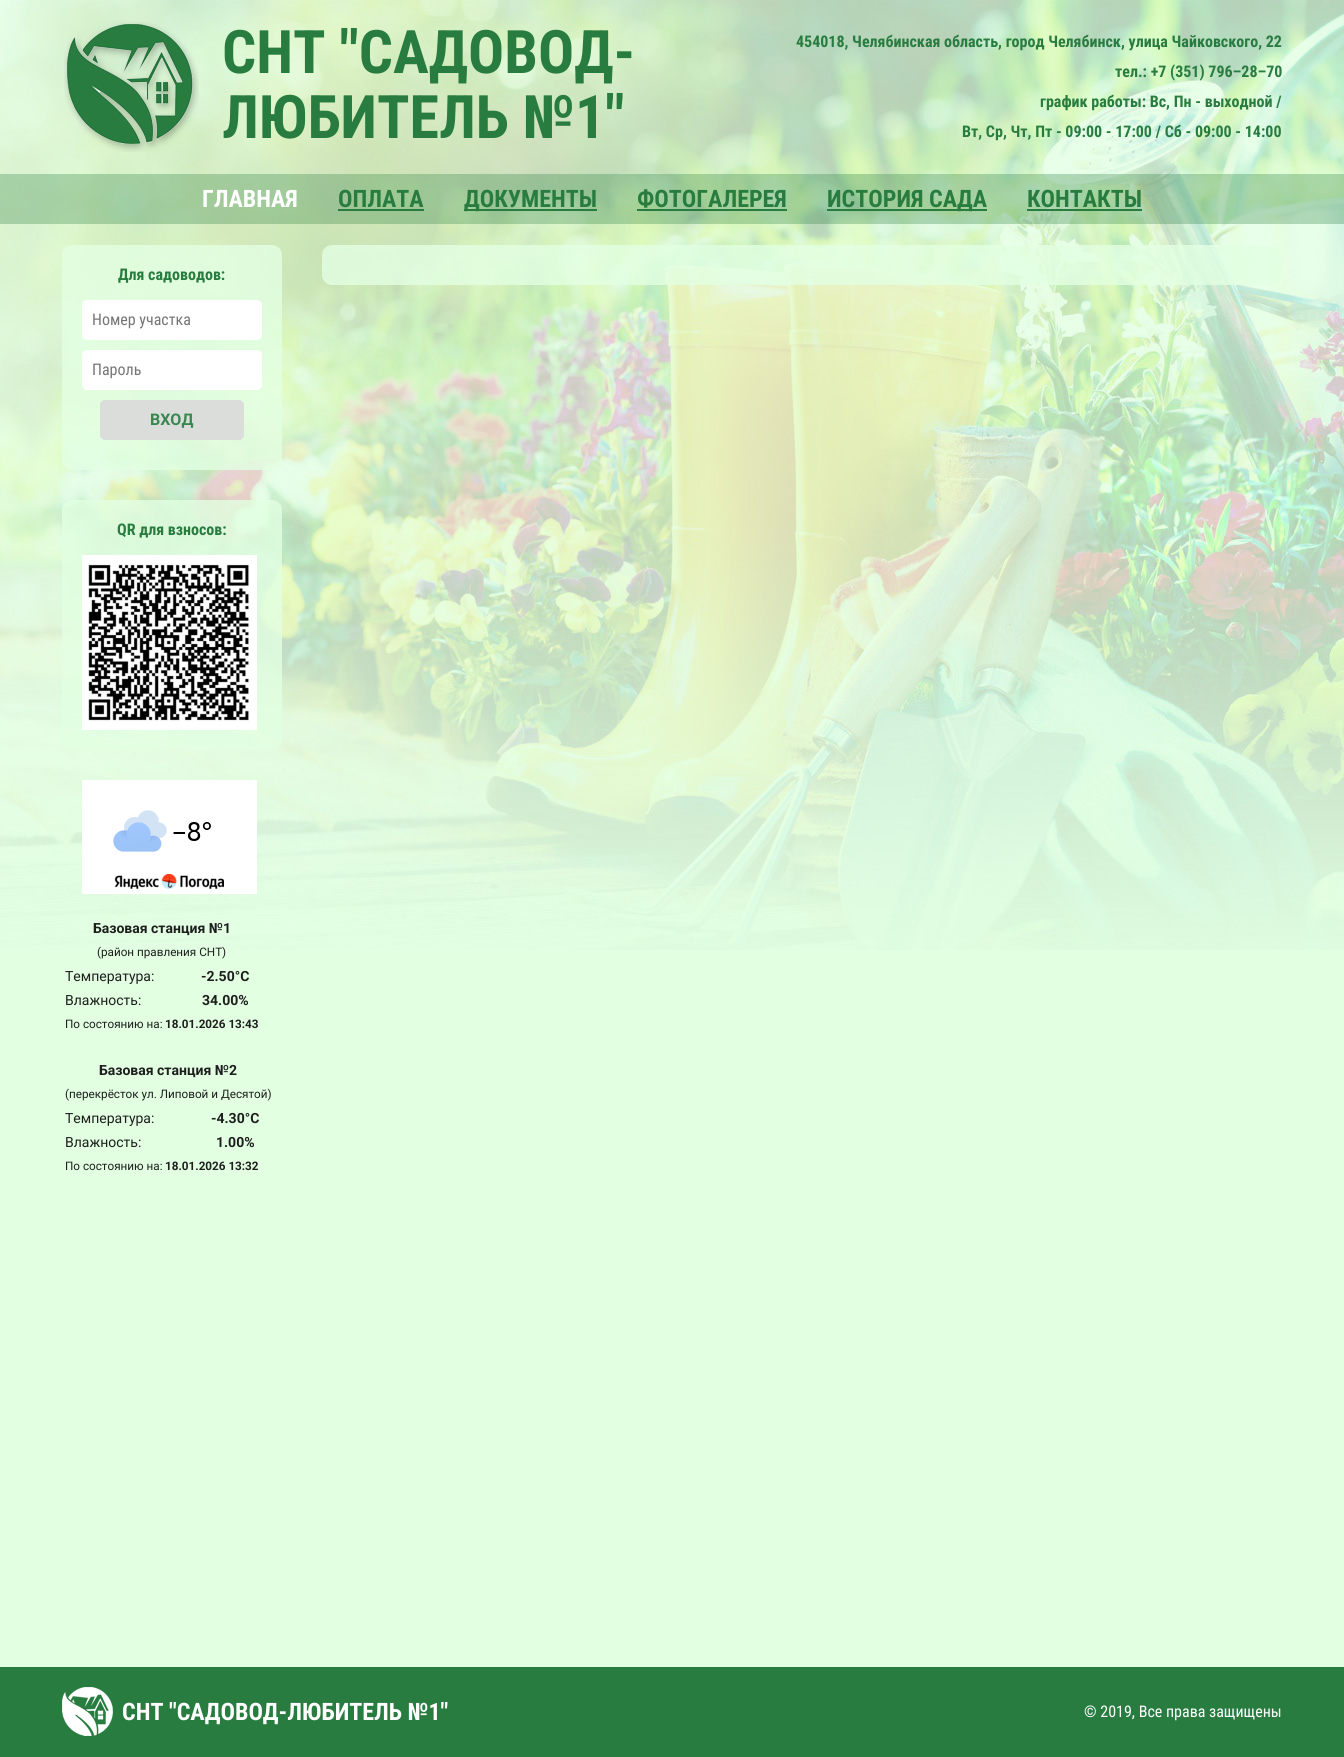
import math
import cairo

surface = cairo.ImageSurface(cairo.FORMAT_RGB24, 1344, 1757)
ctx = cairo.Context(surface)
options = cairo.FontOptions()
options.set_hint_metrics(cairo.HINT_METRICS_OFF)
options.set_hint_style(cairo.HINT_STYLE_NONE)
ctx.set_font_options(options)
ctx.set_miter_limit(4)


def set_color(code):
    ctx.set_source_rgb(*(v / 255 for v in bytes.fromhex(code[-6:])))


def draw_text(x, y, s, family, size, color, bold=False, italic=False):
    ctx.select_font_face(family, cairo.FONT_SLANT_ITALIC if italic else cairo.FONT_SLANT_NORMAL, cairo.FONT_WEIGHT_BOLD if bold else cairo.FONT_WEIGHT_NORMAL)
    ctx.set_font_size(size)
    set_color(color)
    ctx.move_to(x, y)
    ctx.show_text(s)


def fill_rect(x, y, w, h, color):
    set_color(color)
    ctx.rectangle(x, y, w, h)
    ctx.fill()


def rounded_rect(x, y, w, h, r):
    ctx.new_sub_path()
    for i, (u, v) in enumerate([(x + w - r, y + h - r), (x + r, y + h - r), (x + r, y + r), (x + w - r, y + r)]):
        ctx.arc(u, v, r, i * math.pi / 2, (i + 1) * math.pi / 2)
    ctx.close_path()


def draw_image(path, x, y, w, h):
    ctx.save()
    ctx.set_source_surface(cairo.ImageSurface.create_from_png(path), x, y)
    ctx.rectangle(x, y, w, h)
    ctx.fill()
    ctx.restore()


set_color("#e2ffe2")
ctx.paint()
draw_image("assets/img1.png", 0, 0, 1344, 950)
draw_image("assets/img2.png", 64, 22, 135, 130)
draw_text(222, 73, "СНТ \"САДОВОД-", "Roboto Condensed", 60, "#287c40", bold=True)
draw_text(222, 138, "ЛЮБИТЕЛЬ №1\"", "Roboto Condensed", 60, "#287c40", bold=True)
draw_text(796, 47, "454018, Челябинская область, город Челябинск, улица Чайковского, 22", "Roboto Condensed", 16, "#287c40", bold=True)
draw_text(1115, 77, "тел.: +7 (351) 796–28–70", "Roboto Condensed", 16, "#287c40", bold=True)
draw_text(1040, 107, "график работы: Вс, Пн - выходной /", "Roboto Condensed", 16, "#287c40", bold=True)
draw_text(962, 137, "Вт, Ср, Чт, Пт - 09:00 - 17:00 / Сб - 09:00 - 14:00", "Roboto Condensed", 16, "#287c40", bold=True)
ctx.set_source_rgba(0.157, 0.486, 0.251, 0.3)
ctx.rectangle(0, 174, 1344, 50)
ctx.fill()
draw_text(202, 207, "ГЛАВНАЯ", "Roboto Condensed", 24, "#ffffff", bold=True)
draw_text(338, 207, "ОПЛАТА", "Roboto Condensed", 24, "#287c40", bold=True)
fill_rect(338, 209, 86, 2, "#287c40")
fill_rect(464, 209, 133, 2, "#287c40")
draw_text(464, 207, "ДОКУМЕНТЫ", "Roboto Condensed", 24, "#287c40", bold=True)
draw_text(637, 207, "ФОТОГАЛЕРЕЯ", "Roboto Condensed", 24, "#287c40", bold=True)
fill_rect(637, 209, 150, 2, "#287c40")
fill_rect(827, 209, 160, 2, "#287c40")
draw_text(827, 207, "ИСТОРИЯ САДА", "Roboto Condensed", 24, "#287c40", bold=True)
draw_text(1027, 207, "КОНТАКТЫ", "Roboto Condensed", 24, "#287c40", bold=True)
fill_rect(1027, 209, 115, 2, "#287c40")
ctx.set_source_rgba(0.886, 1, 0.886, 0.8)
rounded_rect(62, 245, 220, 225, 10)
ctx.fill()
draw_text(118, 280, "Для садоводов:", "Roboto Condensed", 16, "#287c40", bold=True)
set_color("#ffffff")
rounded_rect(82, 300, 180, 40, 5)
ctx.fill()
draw_text(92, 325, "Номер участка", "Roboto Condensed", 16, "#757575")
set_color("#ffffff")
rounded_rect(82, 350, 180, 40, 5)
ctx.fill()
draw_text(92, 375, "Пароль", "Roboto Condensed", 16, "#757575")
ctx.set_source_rgba(0.851, 0.851, 0.851, 0.9)
rounded_rect(100, 400, 144, 40, 5)
ctx.fill()
draw_text(150, 425, "ВХОД", "Roboto", 16, "#3a864f", bold=True)
ctx.set_source_rgba(0.886, 1, 0.886, 0.8)
rounded_rect(62, 500, 220, 250, 10)
ctx.fill()
draw_text(117, 535, "QR для взносов:", "Roboto Condensed", 16, "#287c40", bold=True)
draw_image("assets/img3.png", 82, 555, 175, 175)
draw_image("assets/img4.png", 82, 780, 175, 114)
draw_text(93, 933, "Базовая станция №1", "Roboto", 14, "#1e1e1e", bold=True)
draw_text(97, 956, "(район правления СНТ)", "Roboto", 11.7, "#1e1e1e")
draw_text(65, 981, "Температура:", "Roboto", 14, "#1e1e1e")
draw_text(201, 981, "-2.50°C", "Roboto", 14, "#1e1e1e", bold=True)
draw_text(65, 1005, "Влажность:", "Roboto", 14, "#1e1e1e")
draw_text(202, 1005, "34.00%", "Roboto", 14, "#1e1e1e", bold=True)
draw_text(65, 1028, "По состоянию на:", "Roboto", 11.7, "#1e1e1e")
draw_text(165, 1028, "18.01.2026 13:43", "Roboto", 11.7, "#1e1e1e", bold=True)
draw_text(99, 1075, "Базовая станция №2", "Roboto", 14, "#1e1e1e", bold=True)
draw_text(65, 1098, "(перекрёсток ул. Липовой и Десятой)", "Roboto", 11.7, "#1e1e1e")
draw_text(65, 1123, "Температура:", "Roboto", 14, "#1e1e1e")
draw_text(211, 1123, "-4.30°C", "Roboto", 14, "#1e1e1e", bold=True)
draw_text(65, 1147, "Влажность:", "Roboto", 14, "#1e1e1e")
draw_text(216, 1147, "1.00%", "Roboto", 14, "#1e1e1e", bold=True)
draw_text(65, 1170, "По состоянию на:", "Roboto", 11.7, "#1e1e1e")
draw_text(165, 1170, "18.01.2026 13:32", "Roboto", 11.7, "#1e1e1e", bold=True)
ctx.set_source_rgba(0.886, 1, 0.886, 0.8)
rounded_rect(322, 245, 960, 40, 10)
ctx.fill()
fill_rect(0, 1667, 1344, 90, "#287c40")
draw_image("assets/img5.png", 62, 1687, 51, 49)
draw_text(122, 1720, "СНТ \"САДОВОД-ЛЮБИТЕЛЬ №1\"", "Roboto Condensed", 24, "#ffffff", bold=True)
draw_text(1084, 1717, "© 2019, Все права защищены", "Roboto Condensed", 16, "#ffffff")
surface.write_to_png("output.png")
